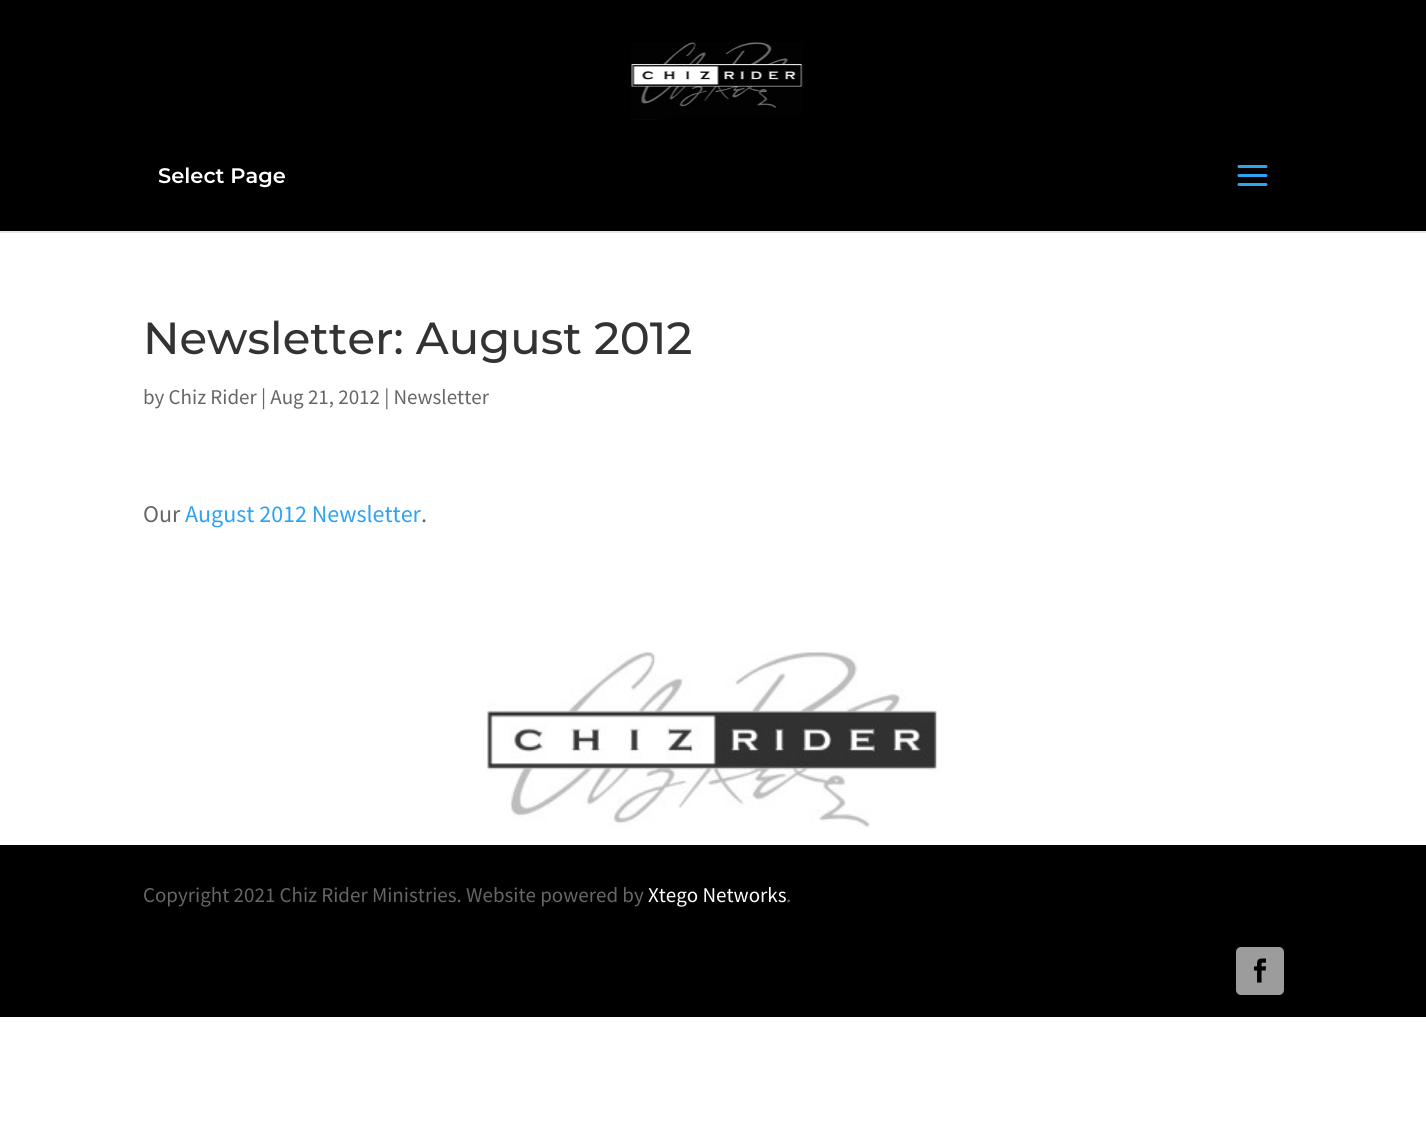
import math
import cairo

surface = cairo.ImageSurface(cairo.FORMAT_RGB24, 1426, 1126)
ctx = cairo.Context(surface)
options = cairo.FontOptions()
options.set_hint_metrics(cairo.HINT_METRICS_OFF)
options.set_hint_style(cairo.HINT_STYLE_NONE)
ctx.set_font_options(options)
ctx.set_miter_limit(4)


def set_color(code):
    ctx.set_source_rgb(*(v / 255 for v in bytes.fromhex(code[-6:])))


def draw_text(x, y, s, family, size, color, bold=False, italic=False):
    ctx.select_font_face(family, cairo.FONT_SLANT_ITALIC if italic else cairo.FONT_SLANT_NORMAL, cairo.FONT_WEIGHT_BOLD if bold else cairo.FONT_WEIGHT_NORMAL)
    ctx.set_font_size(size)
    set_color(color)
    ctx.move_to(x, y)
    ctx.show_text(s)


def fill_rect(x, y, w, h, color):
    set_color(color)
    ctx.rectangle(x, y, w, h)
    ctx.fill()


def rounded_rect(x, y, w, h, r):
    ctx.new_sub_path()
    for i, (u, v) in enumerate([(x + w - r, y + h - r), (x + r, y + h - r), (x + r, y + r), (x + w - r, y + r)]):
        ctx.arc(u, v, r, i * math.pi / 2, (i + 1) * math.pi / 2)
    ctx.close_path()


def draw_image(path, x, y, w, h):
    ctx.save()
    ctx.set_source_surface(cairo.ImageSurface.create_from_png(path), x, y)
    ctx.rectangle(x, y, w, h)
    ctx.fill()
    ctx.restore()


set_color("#ffffff")
ctx.paint()
set_color("#e6e6e6")
ctx.new_path()
ctx.move_to(0, 231)
ctx.line_to(0, 233)
ctx.line_to(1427, 233)
ctx.line_to(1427, 2)
ctx.line_to(1426, 2)
ctx.line_to(1426, 231)
ctx.close_path()
ctx.fill()
fill_rect(0, 0, 1426, 231, "#000000")
draw_image("assets/img1.png", 631, 42, 172, 78)
draw_text(158, 183, "Select Page", "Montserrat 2 Thin", 21, "#ffffff")
draw_image("assets/img2.png", 1237, 165, 31, 21)
draw_text(143, 354, "Newsletter: August 2012", "Montserrat Thin", 45, "#333333")
draw_text(143, 404, "by Chiz Rider | Aug 21, 2012 | Newsletter", "Source Sans Pro", 21, "#666666")
draw_text(143, 522, "Our", "Source Sans Pro", 24, "#666666")
draw_text(185, 522, "August 2012 Newsletter", "Source Sans Pro", 24, "#2ea3f2")
draw_text(421, 522, ".", "Source Sans Pro", 24, "#666666")
draw_image("assets/img3.png", 486, 652, 456, 177)
fill_rect(0, 845, 1426, 172, "#000000")
draw_text(143, 902, "Copyright 2021 Chiz Rider Ministries. Website powered by", "Source Sans Pro", 21, "#666666")
draw_text(648, 902, "Xtego Networks", "Source Sans Pro", 21, "#ffffff")
draw_text(786, 902, ".", "Source Sans Pro", 21, "#666666")
set_color("#9c9c9c")
rounded_rect(1236, 947, 48, 48, 5)
ctx.fill()
draw_image("assets/img4.png", 1254, 958, 12, 25)
surface.write_to_png("output.png")
